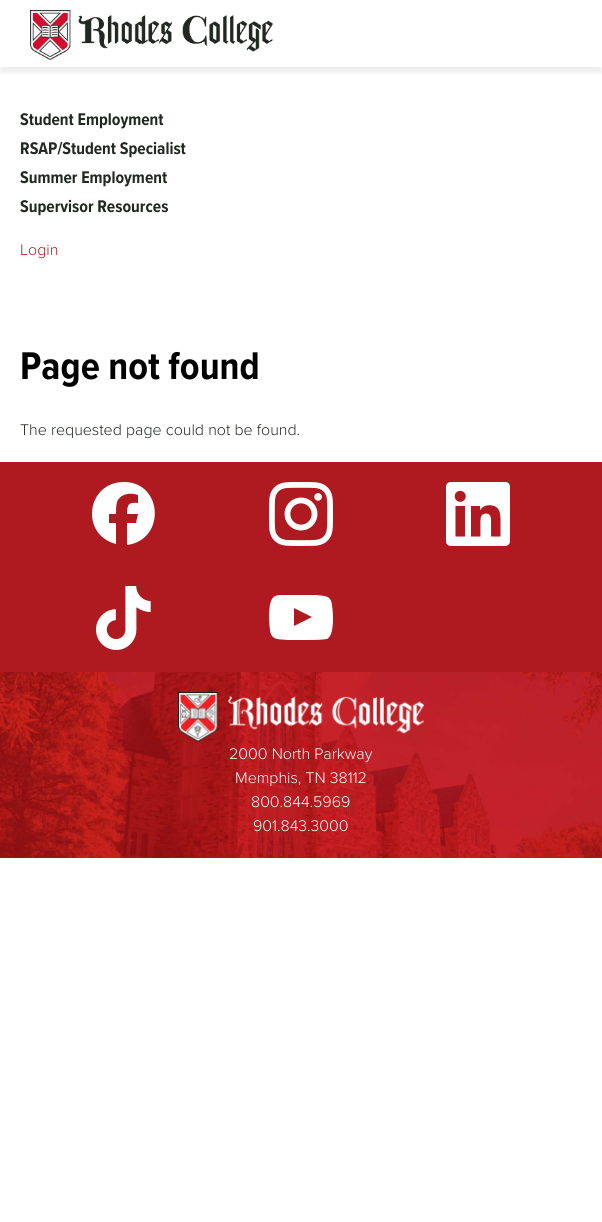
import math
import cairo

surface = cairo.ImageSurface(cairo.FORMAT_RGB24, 602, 1222)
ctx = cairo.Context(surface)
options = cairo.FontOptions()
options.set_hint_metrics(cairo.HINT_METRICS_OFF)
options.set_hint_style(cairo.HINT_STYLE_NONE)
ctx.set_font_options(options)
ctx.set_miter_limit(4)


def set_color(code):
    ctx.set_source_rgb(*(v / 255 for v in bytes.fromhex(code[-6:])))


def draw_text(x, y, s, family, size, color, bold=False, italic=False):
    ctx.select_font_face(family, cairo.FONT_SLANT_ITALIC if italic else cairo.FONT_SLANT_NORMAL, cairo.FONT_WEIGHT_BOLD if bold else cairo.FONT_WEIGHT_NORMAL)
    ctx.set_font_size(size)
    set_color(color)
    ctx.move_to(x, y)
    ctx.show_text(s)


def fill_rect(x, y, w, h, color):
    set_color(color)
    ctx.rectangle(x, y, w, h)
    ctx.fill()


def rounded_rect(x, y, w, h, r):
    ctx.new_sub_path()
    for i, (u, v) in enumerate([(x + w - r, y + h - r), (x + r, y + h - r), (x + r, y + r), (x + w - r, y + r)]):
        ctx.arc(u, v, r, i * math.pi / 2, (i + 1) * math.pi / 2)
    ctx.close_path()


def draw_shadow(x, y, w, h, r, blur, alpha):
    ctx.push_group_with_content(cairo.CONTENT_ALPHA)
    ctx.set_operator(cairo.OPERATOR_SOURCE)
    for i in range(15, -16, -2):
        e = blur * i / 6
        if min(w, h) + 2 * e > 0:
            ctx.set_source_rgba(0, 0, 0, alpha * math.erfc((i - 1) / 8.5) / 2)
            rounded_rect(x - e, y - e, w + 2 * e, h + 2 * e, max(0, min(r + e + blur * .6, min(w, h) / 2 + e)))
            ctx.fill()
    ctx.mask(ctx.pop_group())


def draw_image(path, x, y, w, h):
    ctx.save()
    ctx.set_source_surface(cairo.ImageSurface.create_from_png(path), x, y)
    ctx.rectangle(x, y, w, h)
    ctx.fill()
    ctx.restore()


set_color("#ffffff")
ctx.paint()
ctx.save()
ctx.rectangle(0, 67, 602, 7)
ctx.clip()
set_color("#000000")
draw_shadow(0, 6, 602, 67, 0, 2.5, 0.07)
ctx.restore()
draw_image("assets/img1.png", 30, 10, 243, 50)
draw_text(20, 125, "Student Employment", "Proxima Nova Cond", 17.5, "#212721", bold=True)
draw_text(20, 154, "RSAP/Student Specialist", "Proxima Nova Cond", 17.5, "#212721", bold=True)
draw_text(20, 183, "Summer Employment", "Proxima Nova Cond", 17.5, "#212721", bold=True)
draw_text(20, 212, "Supervisor Resources", "Proxima Nova Cond", 17.5, "#212721", bold=True)
draw_text(20, 255, "Login", "Proxima Nova Light", 16, "#ae1a1f")
draw_text(20, 379, "Page not found", "Proxima Nova Cond", 40, "#000000", bold=True)
draw_text(20, 435, "The requested page could not be found.", "Proxima Nova Light", 16, "#212721")
fill_rect(0, 462, 602, 210, "#ae1a1f")
set_color("#ffffff")
ctx.new_path()
ctx.move_to(124, 482)
ctx.curve_to(86, 482, 80, 535, 116, 544)
ctx.line_to(116, 523)
ctx.line_to(109, 523)
ctx.line_to(109, 514)
ctx.line_to(116, 514)
ctx.curve_to(116, 510, 116, 506, 117, 502)
ctx.curve_to(120, 494, 130, 492, 138, 495)
ctx.line_to(138, 503)
ctx.curve_to(129, 502, 127, 504, 127, 514)
ctx.line_to(138, 514)
ctx.line_to(136, 523)
ctx.line_to(127, 523)
ctx.line_to(127, 545)
ctx.curve_to(166, 540, 163, 482, 124, 482)
ctx.close_path()
ctx.fill()
draw_image("assets/img2.png", 269, 482, 64, 64)
draw_image("assets/img3.png", 446, 482, 64, 64)
draw_image("assets/img4.png", 96, 586, 55, 64)
ctx.save()
ctx.rectangle(269, 595, 64, 46)
ctx.clip()
ctx.new_path()
ctx.move_to(332, 605)
ctx.curve_to(331, 595, 324, 596, 316, 595)
ctx.line_to(296, 595)
ctx.curve_to(291, 595, 280, 594, 275, 596)
ctx.curve_to(267, 600, 269, 623, 270, 630)
ctx.curve_to(271, 641, 280, 639, 288, 640)
ctx.line_to(306, 640)
ctx.curve_to(311, 640, 322, 640, 327, 639)
ctx.curve_to(335, 635, 333, 612, 332, 605)
ctx.close_path()
ctx.move_to(294, 626)
ctx.line_to(294, 608)
ctx.line_to(312, 617)
ctx.close_path()
ctx.fill()
ctx.restore()
draw_image("assets/img5.png", 0, 672, 602, 186)
draw_image("assets/img6.png", 178, 692, 246, 50)
draw_text(229, 759, "2000 North Parkway", "Proxima Nova Light", 16, "#ffffff")
draw_text(235, 783, "Memphis, TN 38112", "Proxima Nova Light", 16, "#ffffff")
draw_text(251, 807, "800.844.5969", "Proxima Nova Light", 16, "#ffffff")
draw_text(253, 831, "901.843.3000", "Proxima Nova Light", 16, "#ffffff")
surface.write_to_png("output.png")
